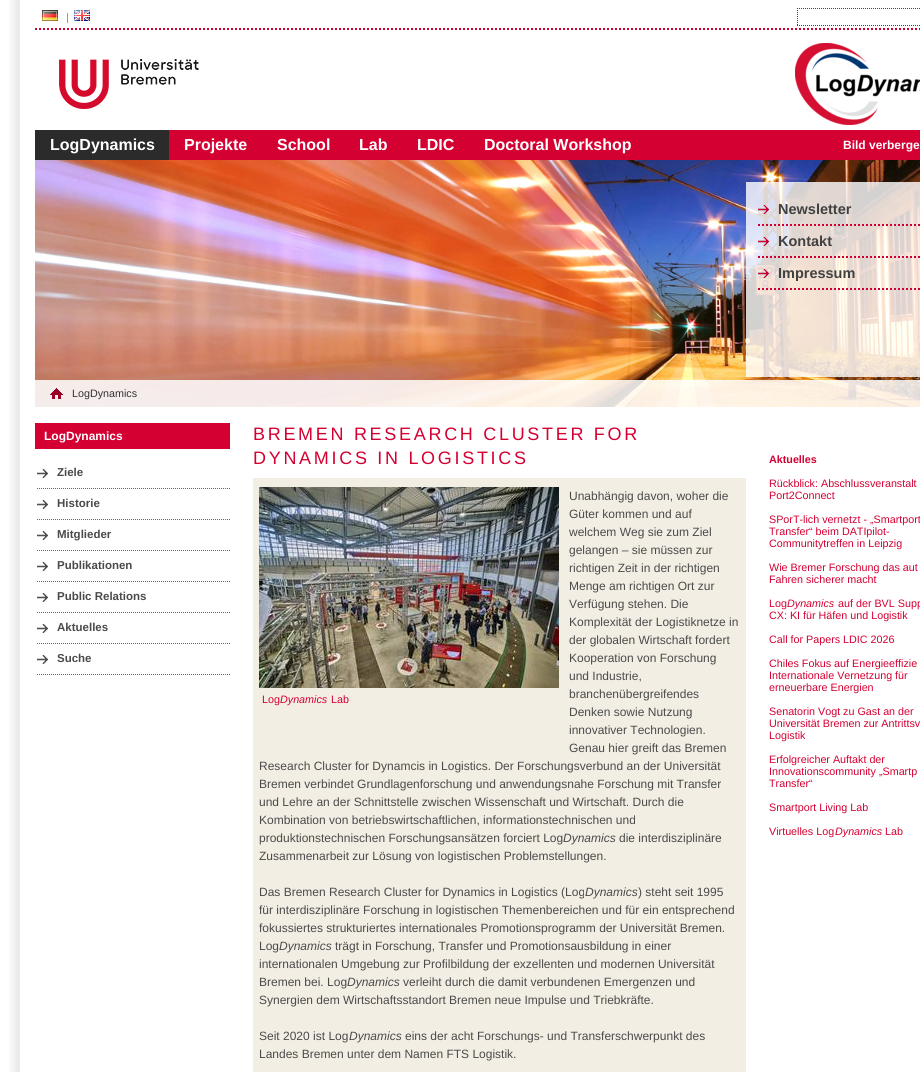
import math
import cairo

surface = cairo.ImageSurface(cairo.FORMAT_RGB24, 920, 1072)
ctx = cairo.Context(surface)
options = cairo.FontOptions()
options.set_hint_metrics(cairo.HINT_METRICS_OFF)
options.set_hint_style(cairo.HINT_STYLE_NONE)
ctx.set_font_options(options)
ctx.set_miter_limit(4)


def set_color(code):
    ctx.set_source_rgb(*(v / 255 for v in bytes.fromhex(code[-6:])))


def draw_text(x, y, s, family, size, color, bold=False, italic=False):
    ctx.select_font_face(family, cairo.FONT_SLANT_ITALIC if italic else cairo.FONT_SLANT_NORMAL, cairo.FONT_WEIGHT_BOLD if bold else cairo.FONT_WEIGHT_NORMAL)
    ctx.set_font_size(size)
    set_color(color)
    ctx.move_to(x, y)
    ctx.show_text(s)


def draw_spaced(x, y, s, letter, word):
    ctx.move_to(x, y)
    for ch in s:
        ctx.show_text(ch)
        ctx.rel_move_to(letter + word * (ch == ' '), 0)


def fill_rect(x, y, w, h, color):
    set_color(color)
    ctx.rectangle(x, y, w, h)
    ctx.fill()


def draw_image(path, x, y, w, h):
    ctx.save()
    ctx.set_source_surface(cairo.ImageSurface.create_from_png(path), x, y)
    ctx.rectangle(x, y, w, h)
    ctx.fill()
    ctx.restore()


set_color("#ffffff")
ctx.paint()
draw_image("assets/img1.png", 9, 0, 11, 1072)
draw_image("assets/img2.png", 35, 28, 885, 2)
draw_image("assets/img3.png", 42, 10, 16, 11)
fill_rect(67, 13, 1, 10, "#979797")
draw_image("assets/img4.png", 74, 10, 16, 11)
ctx.new_path()
ctx.move_to(797, 8.5)
ctx.line_to(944, 8.5)
set_color("#d40032")
ctx.set_line_width(1)
ctx.set_dash([1, 1])
ctx.stroke()
ctx.new_path()
ctx.move_to(797, 25.5)
ctx.line_to(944, 25.5)
ctx.stroke()
ctx.new_path()
ctx.move_to(797.5, 8)
ctx.line_to(797.5, 26)
ctx.stroke()
draw_image("assets/img5.png", 59, 59, 140, 50)
draw_image("assets/img6.png", 795, 43, 125, 82)
fill_rect(169, 130, 751, 30, "#d40032")
fill_rect(35, 130, 134, 30, "#2b2b2b")
draw_text(50, 150, "LogDynamics", "Liberation Sans", 16, "#ffffff", bold=True)
draw_text(184, 150, "Projekte", "Liberation Sans", 16, "#ffffff", bold=True)
draw_text(277, 150, "School", "Liberation Sans", 16, "#ffffff", bold=True)
draw_text(359, 150, "Lab", "Liberation Sans", 16, "#ffffff", bold=True)
draw_text(417, 150, "LDIC", "Liberation Sans", 16, "#ffffff", bold=True)
draw_text(484, 150, "Doctoral Workshop", "Liberation Sans", 16, "#ffffff", bold=True)
draw_text(843, 149, "Bild verberge", "Liberation Sans", 12, "#ffffff", bold=True)
draw_image("assets/img7.png", 35, 160, 885, 247)
ctx.set_source_rgba(1, 1, 1, 0.81)
ctx.rectangle(746, 182, 174, 195)
ctx.fill()
draw_image("assets/img8.png", 758, 224, 162, 2)
draw_image("assets/img9.png", 758, 205, 11, 9)
draw_text(778, 214, "Newsletter", "Liberation Sans", 14.5, "#414141", bold=True)
draw_image("assets/img10.png", 758, 256, 162, 2)
draw_image("assets/img11.png", 758, 237, 11, 9)
draw_text(778, 246, "Kontakt", "Liberation Sans", 14.5, "#414141", bold=True)
draw_image("assets/img12.png", 758, 288, 162, 2)
draw_image("assets/img13.png", 758, 269, 11, 9)
draw_text(778, 278, "Impressum", "Liberation Sans", 14.5, "#414141", bold=True)
ctx.set_source_rgba(1, 1, 1, 0.85)
ctx.rectangle(35, 380, 885, 27)
ctx.fill()
draw_image("assets/img14.png", 50, 388, 13, 11)
draw_text(72, 397, "LogDynamics", "Liberation Sans", 10.75, "#333333")
fill_rect(35, 423, 195, 26, "#d40032")
draw_text(44, 440, "LogDynamics", "Liberation Sans", 12, "#ffffff", bold=True)
draw_image("assets/img15.png", 37, 469, 11, 9)
ctx.new_path()
ctx.move_to(37, 488.5)
ctx.line_to(230, 488.5)
set_color("#666666")
ctx.stroke()
draw_text(57, 476, "Ziele", "Liberation Sans", 11.5, "#4a4a4a", bold=True)
draw_image("assets/img15.png", 37, 500, 11, 9)
ctx.new_path()
ctx.move_to(37, 519.5)
ctx.line_to(230, 519.5)
set_color("#666666")
ctx.stroke()
draw_text(57, 507, "Historie", "Liberation Sans", 11.5, "#4a4a4a", bold=True)
draw_image("assets/img15.png", 37, 531, 11, 9)
ctx.new_path()
ctx.move_to(37, 550.5)
ctx.line_to(230, 550.5)
set_color("#666666")
ctx.stroke()
draw_text(57, 538, "Mitglieder", "Liberation Sans", 11.5, "#4a4a4a", bold=True)
draw_image("assets/img15.png", 37, 562, 11, 9)
ctx.new_path()
ctx.move_to(37, 581.5)
ctx.line_to(230, 581.5)
set_color("#666666")
ctx.stroke()
draw_text(57, 569, "Publikationen", "Liberation Sans", 11.5, "#4a4a4a", bold=True)
draw_image("assets/img15.png", 37, 593, 11, 9)
ctx.new_path()
ctx.move_to(37, 612.5)
ctx.line_to(230, 612.5)
set_color("#666666")
ctx.stroke()
draw_text(57, 600, "Public Relations", "Liberation Sans", 11.5, "#4a4a4a", bold=True)
draw_image("assets/img15.png", 37, 624, 11, 9)
ctx.new_path()
ctx.move_to(37, 643.5)
ctx.line_to(230, 643.5)
set_color("#666666")
ctx.stroke()
draw_text(57, 631, "Aktuelles", "Liberation Sans", 11.5, "#4a4a4a", bold=True)
draw_image("assets/img15.png", 37, 655, 11, 9)
ctx.new_path()
ctx.move_to(37, 674.5)
ctx.line_to(230, 674.5)
set_color("#666666")
ctx.stroke()
draw_text(57, 662, "Suche", "Liberation Sans", 11.5, "#4a4a4a", bold=True)
ctx.select_font_face("Liberation Sans")
ctx.set_font_size(18)
set_color("#d40032")
draw_spaced(253, 440, "BREMEN RESEARCH CLUSTER FOR", 2.7, 0)
draw_spaced(253, 464, "DYNAMICS IN LOGISTICS", 2.7, 0)
fill_rect(253, 478, 493, 594, "#f3eee4")
draw_text(569, 500, "Unabhängig davon, woher die", "Liberation Sans", 12, "#4a4a4a")
draw_text(569, 518, "Güter kommen und auf", "Liberation Sans", 12, "#4a4a4a")
draw_text(569, 536, "welchem Weg sie zum Ziel", "Liberation Sans", 12, "#4a4a4a")
draw_text(569, 554, "gelangen – sie müssen zur", "Liberation Sans", 12, "#4a4a4a")
draw_text(569, 572, "richtigen Zeit in der richtigen", "Liberation Sans", 12, "#4a4a4a")
draw_text(569, 590, "Menge am richtigen Ort zur", "Liberation Sans", 12, "#4a4a4a")
draw_text(569, 608, "Verfügung stehen. Die", "Liberation Sans", 12, "#4a4a4a")
draw_text(569, 626, "Komplexität der Logistiknetze in", "Liberation Sans", 12, "#4a4a4a")
draw_text(569, 644, "der globalen Wirtschaft fordert", "Liberation Sans", 12, "#4a4a4a")
draw_text(569, 662, "Kooperation von Forschung", "Liberation Sans", 12, "#4a4a4a")
draw_text(569, 680, "und Industrie,", "Liberation Sans", 12, "#4a4a4a")
draw_text(569, 698, "branchenübergreifendes", "Liberation Sans", 12, "#4a4a4a")
draw_text(569, 716, "Denken sowie Nutzung", "Liberation Sans", 12, "#4a4a4a")
draw_text(569, 734, "innovativer Technologien.", "Liberation Sans", 12, "#4a4a4a")
draw_text(569, 752, "Genau hier greift das Bremen", "Liberation Sans", 12, "#4a4a4a")
draw_text(259, 770, "Research Cluster for Dynamcis in Logistics. Der Forschungsverbund an der Universität", "Liberation Sans", 12, "#4a4a4a")
draw_text(259, 788, "Bremen verbindet Grundlagenforschung und anwendungsnahe Forschung mit Transfer", "Liberation Sans", 12, "#4a4a4a")
draw_text(259, 806, "und Lehre an der Schnittstelle zwischen Wissenschaft und Wirtschaft. Durch die", "Liberation Sans", 12, "#4a4a4a")
draw_text(259, 824, "Kombination von betriebswirtschaftlichen, informationstechnischen und", "Liberation Sans", 12, "#4a4a4a")
draw_text(259, 842, "produktionstechnischen Forschungsansätzen forciert Log", "Liberation Sans", 12, "#4a4a4a")
draw_text(563, 842, "Dynamics", "Liberation Sans", 12, "#4a4a4a", italic=True)
draw_text(619, 842, "die interdisziplinäre", "Liberation Sans", 12, "#4a4a4a")
draw_text(259, 860, "Zusammenarbeit zur Lösung von logistischen Problemstellungen.", "Liberation Sans", 12, "#4a4a4a")
draw_text(259, 896, "Das Bremen Research Cluster for Dynamics in Logistics (Log", "Liberation Sans", 12, "#4a4a4a")
draw_text(585, 896, "Dynamics", "Liberation Sans", 12, "#4a4a4a", italic=True)
draw_text(638, 896, ") steht seit 1995", "Liberation Sans", 12, "#4a4a4a")
draw_text(259, 914, "für interdisziplinäre Forschung in logistischen Themenbereichen und für ein entsprechend", "Liberation Sans", 12, "#4a4a4a")
draw_text(259, 932, "fokussiertes strukturiertes internationales Promotionsprogramm der Universität Bremen.", "Liberation Sans", 12, "#4a4a4a")
draw_text(259, 950, "Log", "Liberation Sans", 12, "#4a4a4a")
draw_text(279, 950, "Dynamics", "Liberation Sans", 12, "#4a4a4a", italic=True)
draw_text(335, 950, "trägt in Forschung, Transfer und Promotionsausbildung in einer", "Liberation Sans", 12, "#4a4a4a")
draw_text(259, 968, "internationalen Umgebung zur Profilbildung der exzellenten und modernen Universität", "Liberation Sans", 12, "#4a4a4a")
draw_text(259, 986, "Bremen bei. Log", "Liberation Sans", 12, "#4a4a4a")
draw_text(347, 986, "Dynamics", "Liberation Sans", 12, "#4a4a4a", italic=True)
draw_text(403, 986, "verleiht durch die damit verbundenen Emergenzen und", "Liberation Sans", 12, "#4a4a4a")
draw_text(259, 1004, "Synergien dem Wirtschaftsstandort Bremen neue Impulse und Triebkräfte.", "Liberation Sans", 12, "#4a4a4a")
draw_text(259, 1040, "Seit 2020 ist Log", "Liberation Sans", 12, "#4a4a4a")
draw_text(349, 1040, "Dynamics", "Liberation Sans", 12, "#4a4a4a", italic=True)
draw_text(405, 1040, "eins der acht Forschungs- und Transferschwerpunkt des", "Liberation Sans", 12, "#4a4a4a")
draw_text(259, 1058, "Landes Bremen unter dem Namen FTS Logistik.", "Liberation Sans", 12, "#4a4a4a")
draw_image("assets/img16.png", 259, 487, 300, 201)
draw_text(262, 703, "Log", "Liberation Sans", 10.75, "#d40032")
draw_text(280, 703, "Dynamics", "Liberation Sans", 10.75, "#d40032", italic=True)
draw_text(331, 703, "Lab", "Liberation Sans", 10.75, "#d40032")
draw_text(769, 463, "Aktuelles", "Liberation Sans", 10.75, "#d40032", bold=True)
draw_text(769, 487, "Rückblick: Abschlussveranstalt", "Liberation Sans", 10.75, "#d40032")
draw_text(769, 499, "Port2Connect", "Liberation Sans", 10.75, "#d40032")
draw_text(769, 523, "SPorT-lich vernetzt - „Smartport", "Liberation Sans", 10.75, "#d40032")
draw_text(769, 535, "Transfer“ beim DATIpilot-", "Liberation Sans", 10.75, "#d40032")
draw_text(769, 547, "Communitytreffen in Leipzig", "Liberation Sans", 10.75, "#d40032")
draw_text(769, 571, "Wie Bremer Forschung das aut", "Liberation Sans", 10.75, "#d40032")
draw_text(769, 583, "Fahren sicherer macht", "Liberation Sans", 10.75, "#d40032")
draw_text(769, 607, "Log", "Liberation Sans", 10.75, "#d40032")
draw_text(787, 607, "Dynamics", "Liberation Sans", 10.75, "#d40032", italic=True)
draw_text(838, 607, "auf der BVL Supp", "Liberation Sans", 10.75, "#d40032")
draw_text(769, 619, "CX: KI für Häfen und Logistik", "Liberation Sans", 10.75, "#d40032")
draw_text(769, 643, "Call for Papers LDIC 2026", "Liberation Sans", 10.75, "#d40032")
draw_text(769, 667, "Chiles Fokus auf Energieeffizie", "Liberation Sans", 10.75, "#d40032")
draw_text(769, 679, "Internationale Vernetzung für", "Liberation Sans", 10.75, "#d40032")
draw_text(769, 691, "erneuerbare Energien", "Liberation Sans", 10.75, "#d40032")
draw_text(769, 715, "Senatorin Vogt zu Gast an der", "Liberation Sans", 10.75, "#d40032")
draw_text(769, 727, "Universität Bremen zur Antrittsv", "Liberation Sans", 10.75, "#d40032")
draw_text(769, 739, "Logistik", "Liberation Sans", 10.75, "#d40032")
draw_text(769, 763, "Erfolgreicher Auftakt der", "Liberation Sans", 10.75, "#d40032")
draw_text(769, 775, "Innovationscommunity „Smartp", "Liberation Sans", 10.75, "#d40032")
draw_text(769, 787, "Transfer“", "Liberation Sans", 10.75, "#d40032")
draw_text(769, 811, "Smartport Living Lab", "Liberation Sans", 10.75, "#d40032")
draw_text(769, 835, "Virtuelles Log", "Liberation Sans", 10.75, "#d40032")
draw_text(835, 835, "Dynamics", "Liberation Sans", 10.75, "#d40032", italic=True)
draw_text(885, 835, "Lab", "Liberation Sans", 10.75, "#d40032")
surface.write_to_png("output.png")
